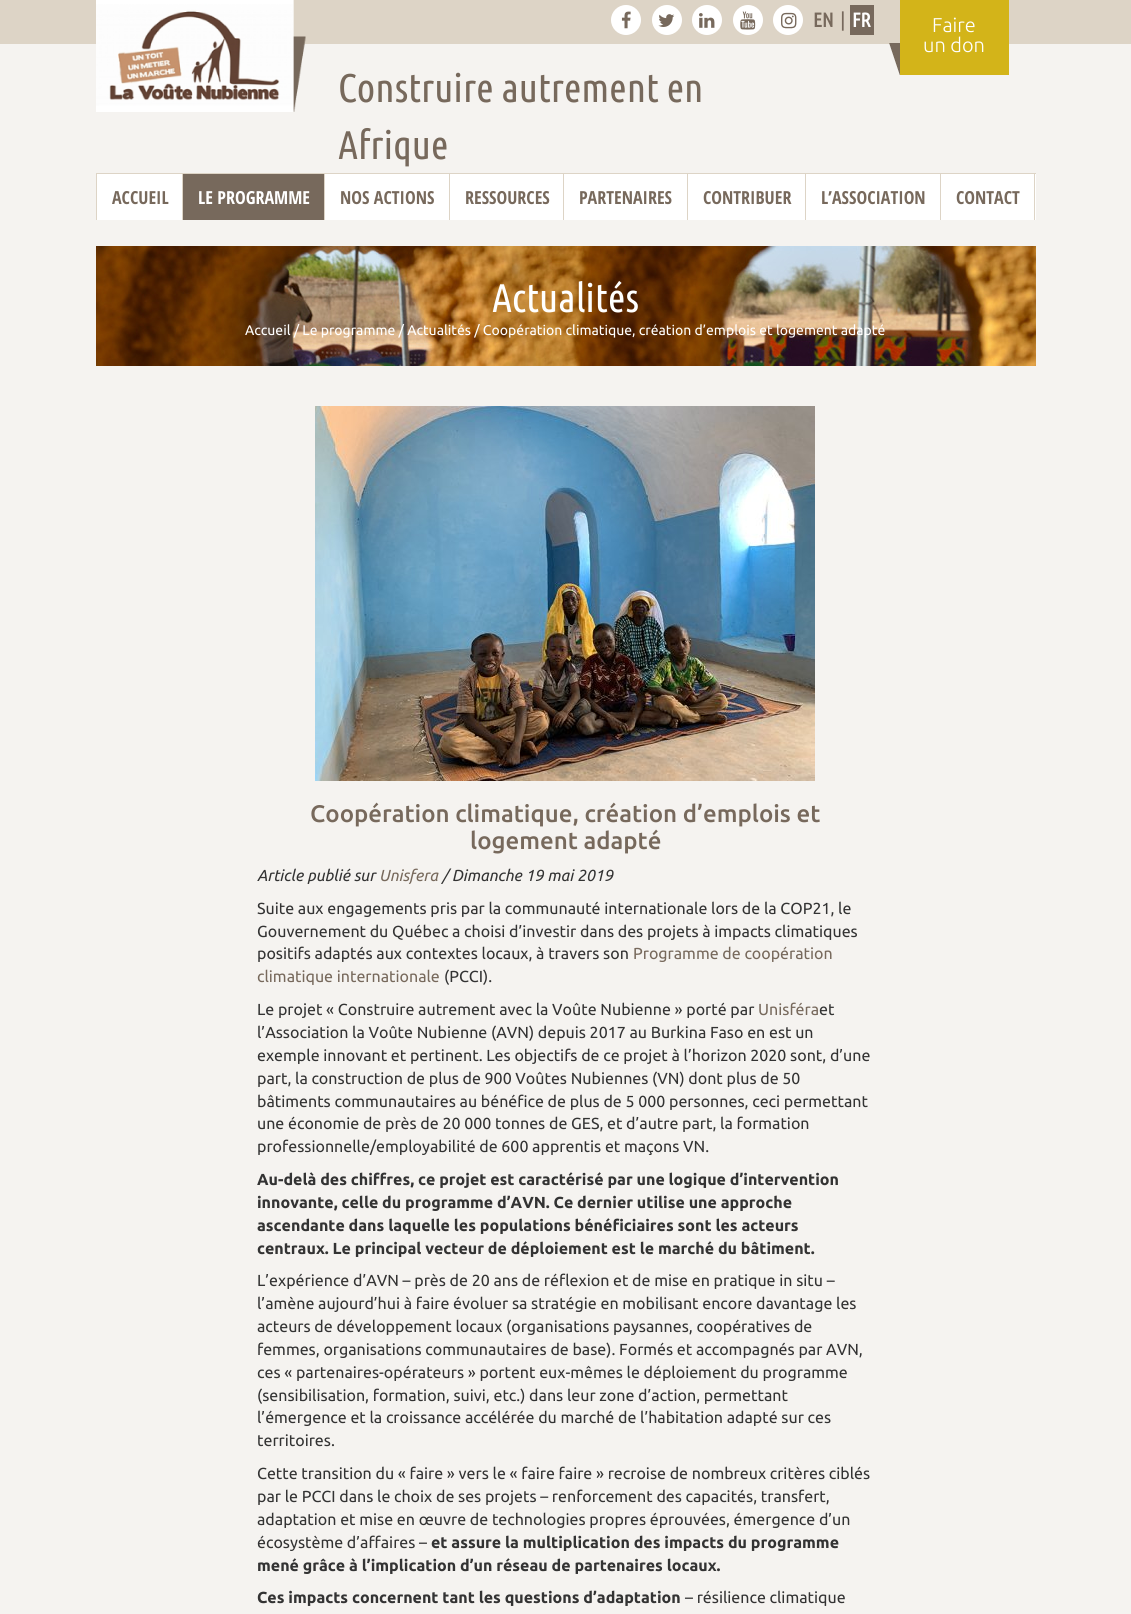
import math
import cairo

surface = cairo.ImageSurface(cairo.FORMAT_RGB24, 1131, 1614)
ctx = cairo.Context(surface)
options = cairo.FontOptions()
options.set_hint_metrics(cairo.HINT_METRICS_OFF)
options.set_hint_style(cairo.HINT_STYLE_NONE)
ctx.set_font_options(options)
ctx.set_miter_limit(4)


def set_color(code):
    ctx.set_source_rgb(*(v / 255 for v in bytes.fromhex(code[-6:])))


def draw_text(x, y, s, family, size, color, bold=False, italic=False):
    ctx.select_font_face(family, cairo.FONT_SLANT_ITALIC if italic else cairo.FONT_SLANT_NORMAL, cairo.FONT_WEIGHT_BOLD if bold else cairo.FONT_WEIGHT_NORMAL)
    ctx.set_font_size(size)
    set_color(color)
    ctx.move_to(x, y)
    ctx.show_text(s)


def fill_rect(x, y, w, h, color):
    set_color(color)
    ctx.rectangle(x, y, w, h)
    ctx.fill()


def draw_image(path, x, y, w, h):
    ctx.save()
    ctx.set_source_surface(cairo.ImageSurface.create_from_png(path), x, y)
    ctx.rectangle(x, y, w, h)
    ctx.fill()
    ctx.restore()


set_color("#f5f3f0")
ctx.paint()
fill_rect(0, 0, 1131, 44, "#ddd4c6")
draw_image("assets/img1.png", 96, 0, 210, 112)
set_color("#ffffff")
ctx.arc(626, 20, 15, 0, 2 * math.pi)
ctx.fill()
draw_image("assets/img2.png", 621, 11, 10, 18)
ctx.arc(667, 20, 15, 0, 2 * math.pi)
ctx.fill()
draw_image("assets/img3.png", 658, 14, 17, 13)
ctx.arc(707, 20, 15, 0, 2 * math.pi)
ctx.fill()
draw_image("assets/img4.png", 699, 13, 16, 15)
ctx.arc(748, 20, 15, 0, 2 * math.pi)
ctx.fill()
draw_image("assets/img5.png", 740, 11, 16, 19)
ctx.arc(788, 20, 15, 0, 2 * math.pi)
ctx.fill()
draw_image("assets/img6.png", 781, 12, 16, 17)
draw_text(813, 27, "EN", "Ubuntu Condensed", 20, "#77695c", bold=True)
draw_text(840, 27, "|", "Ubuntu", 20, "#77695c")
fill_rect(850, 5, 24, 30, "#77695c")
draw_text(852, 27, "FR", "Ubuntu Condensed", 20, "#ffffff", bold=True)
draw_image("assets/img7.png", 889, 0, 120, 75)
draw_text(932, 32, "Faire", "Ubuntu Light", 20, "#ffffff")
draw_text(923, 52, "un don", "Ubuntu Light", 20, "#ffffff")
draw_text(338, 102, "Construire autrement en", "Ubuntu Condensed", 40, "#77695c")
draw_text(338, 159, "Afrique", "Ubuntu Condensed", 40, "#77695c")
fill_rect(97, 174, 939, 46, "#ffffff")
fill_rect(96, 173, 940, 1, "#ddd4c6")
fill_rect(96, 174, 1, 46, "#ddd4c6")
draw_text(112, 204, "ACCUEIL", "Open Sans Condensed", 18, "#77695c", bold=True)
fill_rect(183, 174, 141, 46, "#77695c")
fill_rect(182, 174, 1, 46, "#ddd4c6")
draw_text(198, 204, "LE PROGRAMME", "Open Sans Condensed", 18, "#ffffff", bold=True)
fill_rect(324, 174, 1, 46, "#ddd4c6")
draw_text(340, 204, "NOS ACTIONS", "Open Sans Condensed", 18, "#77695c", bold=True)
fill_rect(449, 174, 1, 46, "#ddd4c6")
draw_text(465, 204, "RESSOURCES", "Open Sans Condensed", 18, "#77695c", bold=True)
fill_rect(563, 174, 1, 46, "#ddd4c6")
draw_text(579, 204, "PARTENAIRES", "Open Sans Condensed", 18, "#77695c", bold=True)
fill_rect(687, 174, 1, 46, "#ddd4c6")
draw_text(703, 204, "CONTRIBUER", "Open Sans Condensed", 18, "#77695c", bold=True)
fill_rect(805, 174, 1, 46, "#ddd4c6")
draw_text(821, 204, "L’ASSOCIATION", "Open Sans Condensed", 18, "#77695c", bold=True)
fill_rect(1034, 174, 1, 46, "#ddd4c6")
fill_rect(940, 174, 1, 46, "#ddd4c6")
draw_text(956, 204, "CONTACT", "Open Sans Condensed", 18, "#77695c", bold=True)
draw_image("assets/img8.png", 96, 246, 940, 120)
draw_text(492, 312, "Actualités", "Ubuntu Condensed", 40, "#ffffff")
draw_text(245, 335, "Accueil / Le programme / Actualités / Coopération climatique, création d’emplois et logement adapté", "Ubuntu", 14, "#ffffff")
draw_image("assets/img9.png", 315, 406, 500, 375)
draw_text(310, 822, "Coopération climatique, création d’emplois et", "Ubuntu Medium", 24, "#77695c")
draw_text(470, 849, "logement adapté", "Ubuntu Medium", 24, "#77695c")
draw_text(257, 881, "Article publié sur", "Ubuntu", 16, "#333333", italic=True)
draw_text(379, 881, "Unisfera", "Ubuntu", 16, "#77695c", italic=True)
draw_text(442, 881, "/ Dimanche 19 mai 2019", "Ubuntu", 16, "#333333", italic=True)
draw_text(257, 914, "Suite aux engagements pris par la communauté internationale lors de la COP21, le", "Ubuntu", 16, "#333333")
draw_text(257, 937, "Gouvernement du Québec a choisi d’investir dans des projets à impacts climatiques", "Ubuntu", 16, "#333333")
draw_text(257, 959, "positifs adaptés aux contextes locaux, à travers son", "Ubuntu", 16, "#333333")
draw_text(633, 959, "Programme de coopération", "Ubuntu", 16, "#77695c")
draw_text(257, 982, "climatique internationale", "Ubuntu", 16, "#77695c")
draw_text(444, 982, "(PCCI).", "Ubuntu", 16, "#333333")
draw_text(257, 1015, "Le projet « Construire autrement avec la Voûte Nubienne » porté par", "Ubuntu", 16, "#333333")
draw_text(758, 1015, "Unisféra", "Ubuntu", 16, "#77695c")
draw_text(819, 1015, "et", "Ubuntu", 16, "#333333")
draw_text(257, 1038, "l’Association la Voûte Nubienne (AVN) depuis 2017 au Burkina Faso en est un", "Ubuntu", 16, "#333333")
draw_text(257, 1061, "exemple innovant et pertinent. Les objectifs de ce projet à l’horizon 2020 sont, d’une", "Ubuntu", 16, "#333333")
draw_text(257, 1084, "part, la construction de plus de 900 Voûtes Nubiennes (VN) dont plus de 50", "Ubuntu", 16, "#333333")
draw_text(257, 1107, "bâtiments communautaires au bénéfice de plus de 5 000 personnes, ceci permettant", "Ubuntu", 16, "#333333")
draw_text(257, 1129, "une économie de près de 20 000 tonnes de GES, et d’autre part, la formation", "Ubuntu", 16, "#333333")
draw_text(257, 1152, "professionnelle/employabilité de 600 apprentis et maçons VN.", "Ubuntu", 16, "#333333")
draw_text(257, 1185, "Au-delà des chiffres, ce projet est caractérisé par une logique d’intervention", "Ubuntu", 16, "#333333", bold=True)
draw_text(257, 1208, "innovante, celle du programme d’AVN. Ce dernier utilise une approche", "Ubuntu", 16, "#333333", bold=True)
draw_text(257, 1231, "ascendante dans laquelle les populations bénéficiaires sont les acteurs", "Ubuntu", 16, "#333333", bold=True)
draw_text(257, 1254, "centraux. Le principal vecteur de déploiement est le marché du bâtiment.", "Ubuntu", 16, "#333333", bold=True)
draw_text(257, 1286, "L’expérience d’AVN – près de 20 ans de réflexion et de mise en pratique in situ –", "Ubuntu", 16, "#333333")
draw_text(257, 1309, "l’amène aujourd’hui à faire évoluer sa stratégie en mobilisant encore davantage les", "Ubuntu", 16, "#333333")
draw_text(257, 1332, "acteurs de développement locaux (organisations paysannes, coopératives de", "Ubuntu", 16, "#333333")
draw_text(257, 1355, "femmes, organisations communautaires de base). Formés et accompagnés par AVN,", "Ubuntu", 16, "#333333")
draw_text(257, 1378, "ces « partenaires-opérateurs » portent eux-mêmes le déploiement du programme", "Ubuntu", 16, "#333333")
draw_text(257, 1401, "(sensibilisation, formation, suivi, etc.) dans leur zone d’action, permettant", "Ubuntu", 16, "#333333")
draw_text(257, 1423, "l’émergence et la croissance accélérée du marché de l’habitation adapté sur ces", "Ubuntu", 16, "#333333")
draw_text(257, 1446, "territoires.", "Ubuntu", 16, "#333333")
draw_text(257, 1479, "Cette transition du « faire » vers le « faire faire » recroise de nombreux critères ciblés", "Ubuntu", 16, "#333333")
draw_text(257, 1502, "par le PCCI dans le choix de ses projets – renforcement des capacités, transfert,", "Ubuntu", 16, "#333333")
draw_text(257, 1525, "adaptation et mise en œuvre de technologies propres éprouvées, émergence d’un", "Ubuntu", 16, "#333333")
draw_text(257, 1548, "écosystème d’affaires –", "Ubuntu", 16, "#333333")
draw_text(431, 1548, "et assure la multiplication des impacts du programme", "Ubuntu", 16, "#333333", bold=True)
draw_text(257, 1571, "mené grâce à l’implication d’un réseau de partenaires locaux.", "Ubuntu", 16, "#333333", bold=True)
draw_text(257, 1603, "Ces impacts concernent tant les questions d’adaptation", "Ubuntu", 16, "#333333", bold=True)
draw_text(685, 1603, "– résilience climatique", "Ubuntu", 16, "#333333")
surface.write_to_png("output.png")
